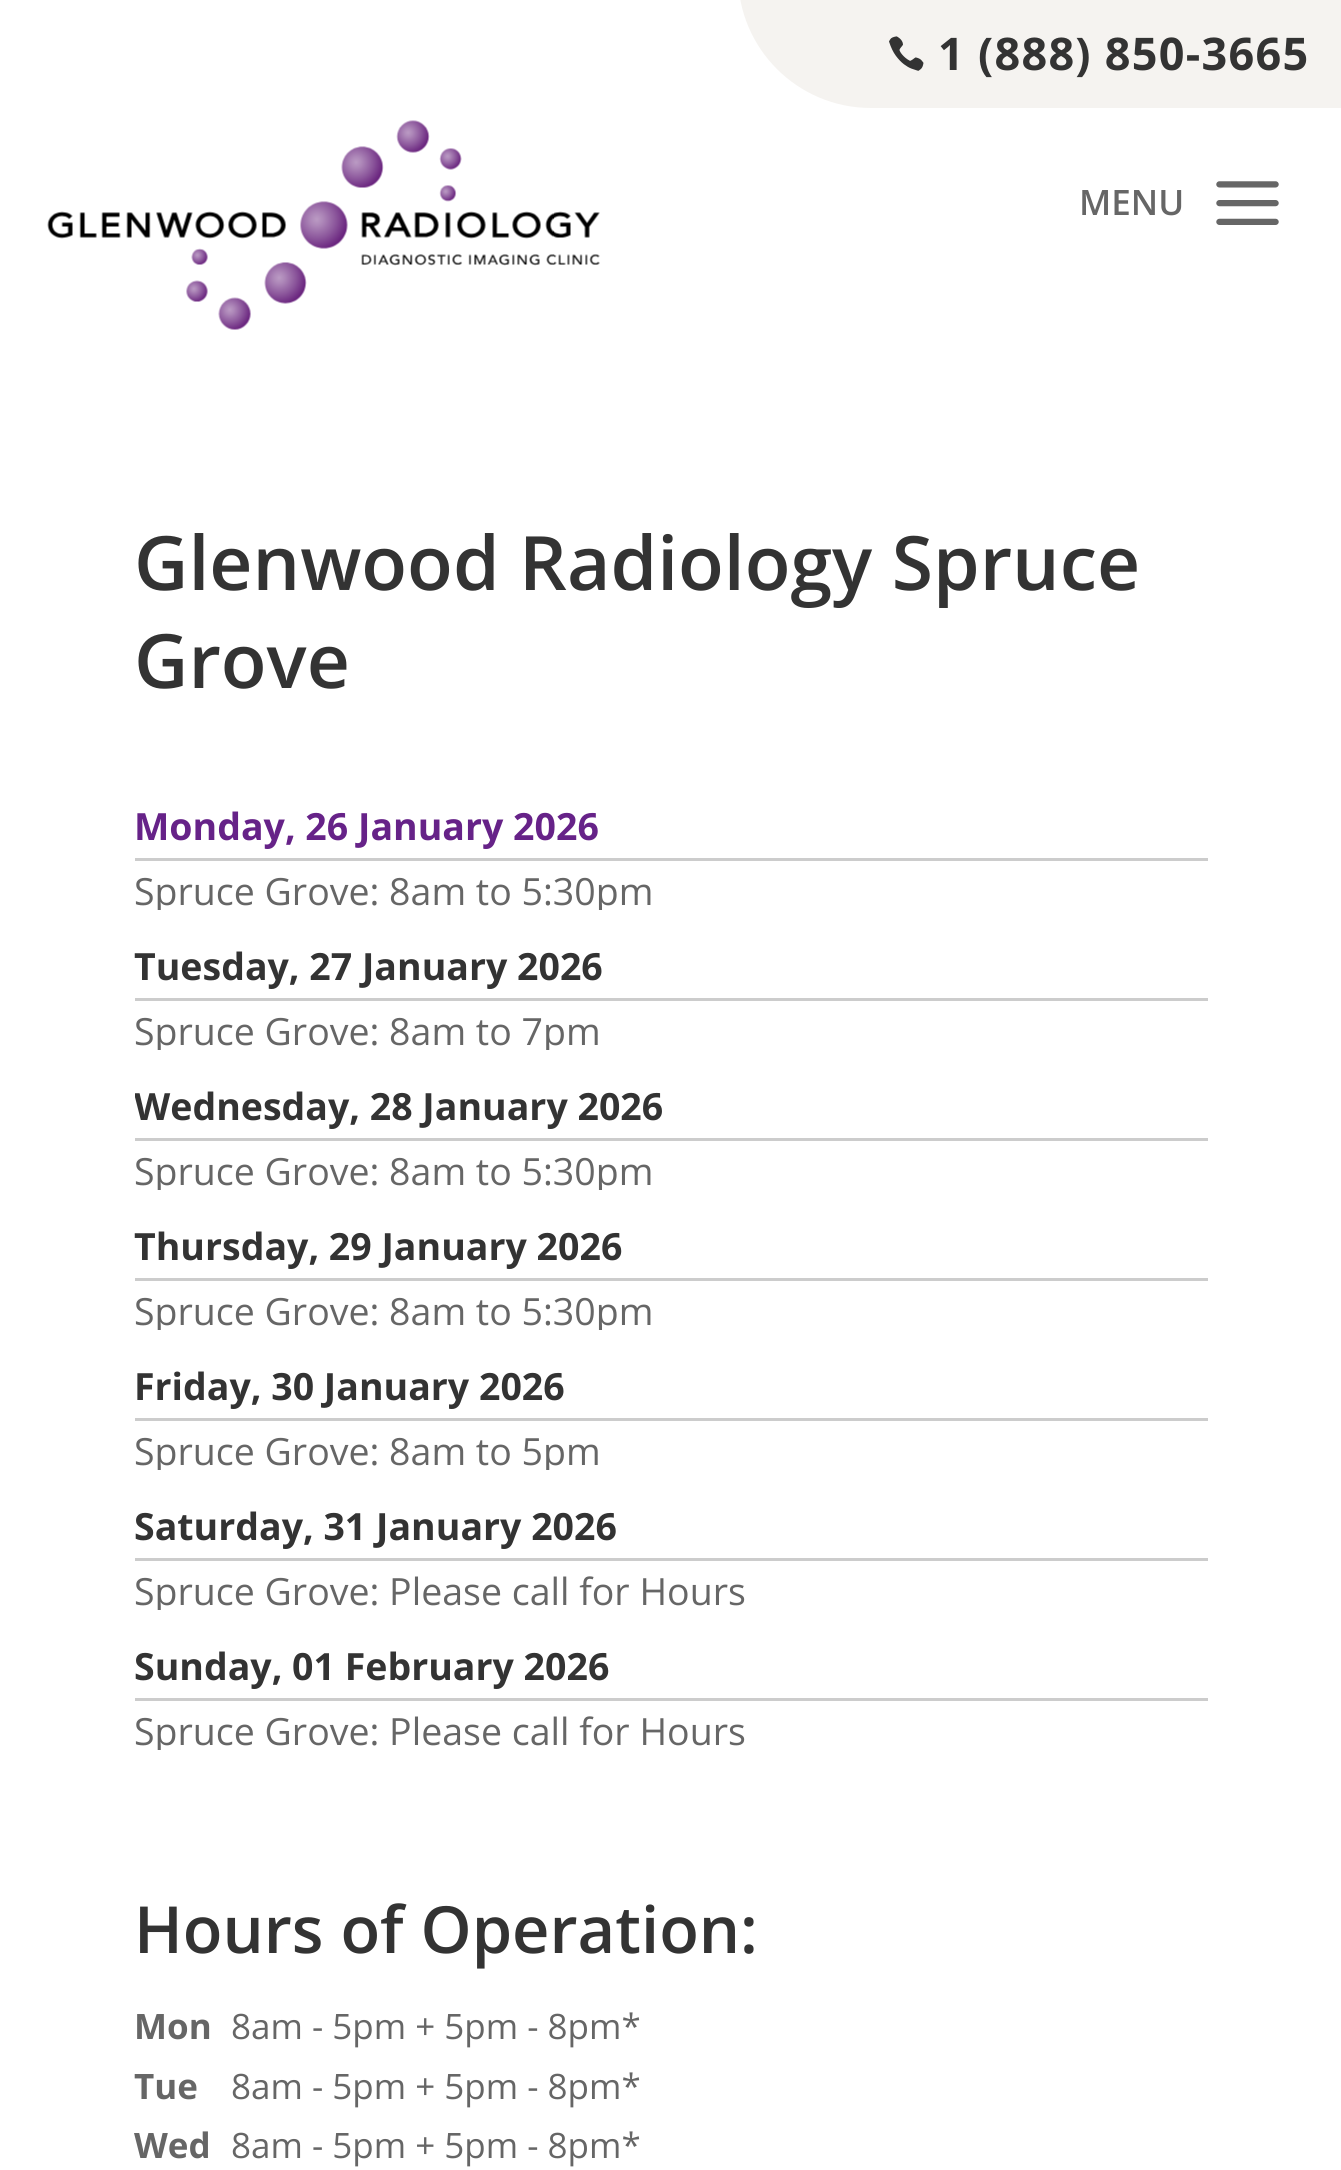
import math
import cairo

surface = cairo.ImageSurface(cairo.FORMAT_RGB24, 1341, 2170)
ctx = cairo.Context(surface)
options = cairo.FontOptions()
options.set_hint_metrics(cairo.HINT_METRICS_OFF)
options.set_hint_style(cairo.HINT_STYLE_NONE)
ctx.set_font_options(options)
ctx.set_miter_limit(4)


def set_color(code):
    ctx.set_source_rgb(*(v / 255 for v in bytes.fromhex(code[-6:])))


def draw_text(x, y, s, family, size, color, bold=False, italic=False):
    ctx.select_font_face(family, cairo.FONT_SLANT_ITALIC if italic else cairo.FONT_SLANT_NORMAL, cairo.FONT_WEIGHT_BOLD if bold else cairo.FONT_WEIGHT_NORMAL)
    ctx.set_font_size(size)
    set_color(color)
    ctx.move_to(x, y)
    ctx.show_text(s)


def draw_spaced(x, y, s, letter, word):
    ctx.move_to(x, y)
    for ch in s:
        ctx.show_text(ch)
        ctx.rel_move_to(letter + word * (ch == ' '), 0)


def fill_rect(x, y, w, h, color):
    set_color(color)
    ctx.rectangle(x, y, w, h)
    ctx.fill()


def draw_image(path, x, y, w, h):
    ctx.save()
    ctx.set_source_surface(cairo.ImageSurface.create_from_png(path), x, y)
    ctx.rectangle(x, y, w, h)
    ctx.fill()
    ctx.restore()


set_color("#ffffff")
ctx.paint()
set_color("#f5f3f0")
ctx.new_path()
ctx.move_to(738, -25)
ctx.line_to(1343, -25)
ctx.line_to(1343, 108)
ctx.line_to(871, 108)
ctx.curve_to(797.5, 108, 738, 48.5, 738, -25)
ctx.close_path()
ctx.fill()
draw_image("assets/img1.png", 889, 36, 35, 35)
ctx.select_font_face("Open Sans", cairo.FONT_SLANT_NORMAL, cairo.FONT_WEIGHT_BOLD)
ctx.set_font_size(45)
set_color("#333333")
draw_spaced(938, 70, "1 (888) 850-3665", 1.25, 0)
draw_image("assets/img2.png", 47, 120, 553, 210)
draw_text(1079, 215, "MENU", "Open Sans SemiBold", 35, "#666666")
draw_image("assets/img3.png", 1216, 181, 63, 44)
draw_text(134, 590, "Glenwood Radiology Spruce", "Open Sans SemiBold", 75, "#333333")
draw_text(134, 688, "Grove", "Open Sans SemiBold", 75, "#333333")
fill_rect(135, 858, 1073, 3, "#cccccc")
draw_text(134, 840, "Monday, 26 January 2026", "Open Sans", 37.5, "#662288", bold=True)
ctx.save()
ctx.rectangle(135, 873, 1073, 37)
ctx.clip()
draw_text(134, 905, "Spruce Grove: 8am to 5:30pm", "Open Sans", 37.5, "#666666")
ctx.restore()
fill_rect(135, 998, 1073, 3, "#cccccc")
draw_text(134, 980, "Tuesday, 27 January 2026", "Open Sans", 37.5, "#333333", bold=True)
ctx.save()
ctx.rectangle(135, 1013, 1073, 37)
ctx.clip()
draw_text(134, 1045, "Spruce Grove: 8am to 7pm", "Open Sans", 37.5, "#666666")
ctx.restore()
fill_rect(135, 1138, 1073, 3, "#cccccc")
ctx.save()
ctx.rectangle(135, 808, 1073, 975)
ctx.clip()
draw_text(134, 1120, "Wednesday, 28 January 2026", "Open Sans", 37.5, "#333333", bold=True)
ctx.restore()
ctx.save()
ctx.rectangle(135, 1153, 1073, 37)
ctx.clip()
draw_text(134, 1185, "Spruce Grove: 8am to 5:30pm", "Open Sans", 37.5, "#666666")
ctx.restore()
fill_rect(135, 1278, 1073, 3, "#cccccc")
draw_text(134, 1260, "Thursday, 29 January 2026", "Open Sans", 37.5, "#333333", bold=True)
ctx.save()
ctx.rectangle(135, 1293, 1073, 37)
ctx.clip()
draw_text(134, 1325, "Spruce Grove: 8am to 5:30pm", "Open Sans", 37.5, "#666666")
ctx.restore()
fill_rect(135, 1418, 1073, 3, "#cccccc")
draw_text(134, 1400, "Friday, 30 January 2026", "Open Sans", 37.5, "#333333", bold=True)
ctx.save()
ctx.rectangle(135, 1433, 1073, 37)
ctx.clip()
draw_text(134, 1465, "Spruce Grove: 8am to 5pm", "Open Sans", 37.5, "#666666")
ctx.restore()
fill_rect(135, 1558, 1073, 3, "#cccccc")
draw_text(134, 1540, "Saturday, 31 January 2026", "Open Sans", 37.5, "#333333", bold=True)
ctx.save()
ctx.rectangle(135, 1573, 1073, 37)
ctx.clip()
draw_text(134, 1605, "Spruce Grove: Please call for Hours", "Open Sans", 37.5, "#666666")
ctx.restore()
fill_rect(135, 1698, 1073, 3, "#cccccc")
draw_text(134, 1680, "Sunday, 01 February 2026", "Open Sans", 37.5, "#333333", bold=True)
ctx.save()
ctx.rectangle(135, 1713, 1073, 37)
ctx.clip()
draw_text(134, 1745, "Spruce Grove: Please call for Hours", "Open Sans", 37.5, "#666666")
ctx.restore()
draw_text(134, 1953, "Hours of Operation:", "Open Sans SemiBold", 65, "#333333")
draw_text(134, 2039, "Mon", "Open Sans", 35, "#666666", bold=True)
draw_text(231, 2039, "8am - 5pm + 5pm - 8pm*", "Open Sans", 35, "#666666")
draw_text(134, 2099, "Tue", "Open Sans", 35, "#666666", bold=True)
draw_text(231, 2099, "8am - 5pm + 5pm - 8pm*", "Open Sans", 35, "#666666")
draw_text(134, 2158, "Wed", "Open Sans", 35, "#666666", bold=True)
draw_text(231, 2158, "8am - 5pm + 5pm - 8pm*", "Open Sans", 35, "#666666")
surface.write_to_png("output.png")
